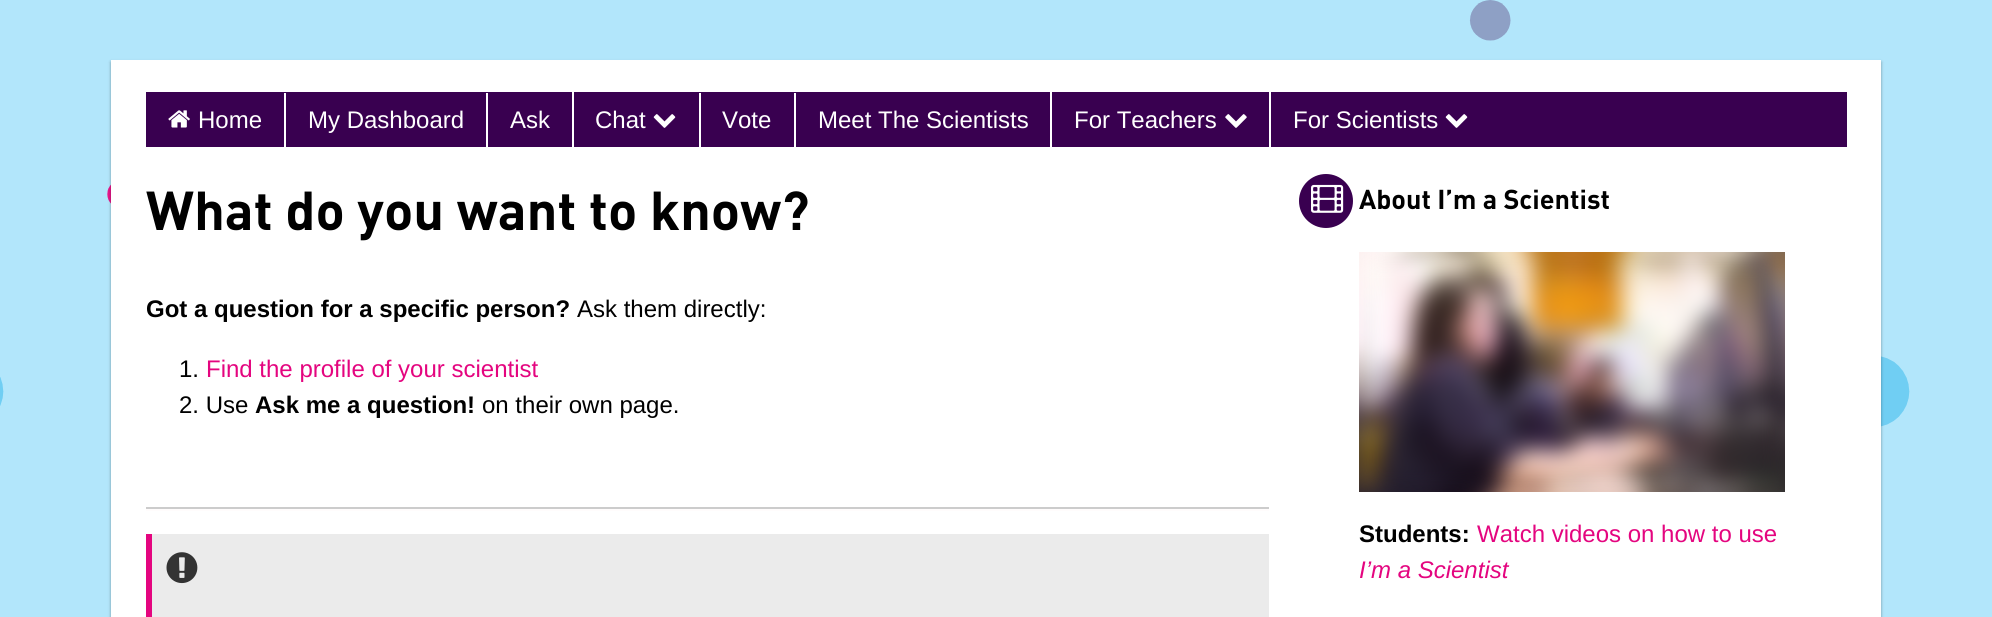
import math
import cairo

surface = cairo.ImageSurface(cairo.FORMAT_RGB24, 1992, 617)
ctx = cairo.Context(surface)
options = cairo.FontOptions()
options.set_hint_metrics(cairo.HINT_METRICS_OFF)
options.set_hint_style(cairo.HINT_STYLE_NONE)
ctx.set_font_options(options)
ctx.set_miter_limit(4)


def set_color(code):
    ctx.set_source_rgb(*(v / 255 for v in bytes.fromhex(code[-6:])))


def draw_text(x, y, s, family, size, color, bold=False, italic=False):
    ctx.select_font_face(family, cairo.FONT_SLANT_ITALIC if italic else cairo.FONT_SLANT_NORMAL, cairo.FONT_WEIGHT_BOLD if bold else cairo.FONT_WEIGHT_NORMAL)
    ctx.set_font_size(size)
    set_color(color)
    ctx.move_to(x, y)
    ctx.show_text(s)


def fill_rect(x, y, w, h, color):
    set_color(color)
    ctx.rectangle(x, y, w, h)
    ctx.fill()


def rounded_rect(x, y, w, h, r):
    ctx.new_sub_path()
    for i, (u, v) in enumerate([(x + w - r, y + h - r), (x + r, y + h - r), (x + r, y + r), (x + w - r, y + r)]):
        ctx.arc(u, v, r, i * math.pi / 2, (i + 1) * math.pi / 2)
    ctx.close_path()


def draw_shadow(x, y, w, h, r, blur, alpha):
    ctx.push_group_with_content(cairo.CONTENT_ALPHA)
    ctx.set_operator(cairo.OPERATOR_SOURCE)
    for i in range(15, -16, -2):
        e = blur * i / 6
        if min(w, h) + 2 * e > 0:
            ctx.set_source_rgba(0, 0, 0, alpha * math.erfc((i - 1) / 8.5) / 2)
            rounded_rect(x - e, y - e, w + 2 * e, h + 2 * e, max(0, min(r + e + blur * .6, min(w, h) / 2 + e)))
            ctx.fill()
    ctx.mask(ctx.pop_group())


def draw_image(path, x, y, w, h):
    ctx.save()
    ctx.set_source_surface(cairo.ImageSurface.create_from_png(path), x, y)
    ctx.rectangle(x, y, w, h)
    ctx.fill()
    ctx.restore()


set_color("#b2e6fb")
ctx.paint()
draw_image("assets/img1.png", 0, 0, 1910, 427)
set_color("#000000")
draw_shadow(111, 62, 1770, 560, 0, 1.5, 0.24)
draw_shadow(111, 62, 1770, 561, 0, 2, 0.12)
fill_rect(111, 60, 1770, 557, "#ffffff")
fill_rect(146, 92, 1701, 55, "#390050")
draw_image("assets/img2.png", 168, 110, 22, 18)
draw_text(198, 128, "Home", "Liberation Sans", 24, "#ffffff")
fill_rect(284, 93, 2, 54, "#ffffff")
draw_text(308, 128, "My Dashboard", "Liberation Sans", 24, "#ffffff")
fill_rect(486, 93, 2, 54, "#ffffff")
draw_text(510, 128, "Ask", "Liberation Sans", 24, "#ffffff")
fill_rect(572, 92, 2, 55, "#ffffff")
draw_text(595, 128, "Chat", "Liberation Sans", 24, "#ffffff")
draw_image("assets/img3.png", 653, 114, 23, 14)
fill_rect(699, 93, 2, 54, "#ffffff")
draw_text(722, 128, "Vote", "Liberation Sans", 24, "#ffffff")
fill_rect(794, 93, 2, 54, "#ffffff")
draw_text(818, 128, "Meet The Scientists", "Liberation Sans", 24, "#ffffff")
fill_rect(1050, 92, 2, 55, "#ffffff")
draw_text(1074, 128, "For Teachers", "Liberation Sans", 24, "#ffffff")
draw_image("assets/img4.png", 1225, 114, 22, 14)
fill_rect(1269, 92, 2, 55, "#ffffff")
draw_text(1293, 128, "For Scientists", "Liberation Sans", 24, "#ffffff")
draw_image("assets/img3.png", 1445, 114, 23, 14)
draw_text(146, 230, "What do you want to know?", "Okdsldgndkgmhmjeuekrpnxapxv", 54, "#000000", bold=True)
draw_text(146, 317, "Got a question for a specific person?", "Liberation Sans", 24, "#000000", bold=True)
draw_text(577, 317, "Ask them directly:", "Liberation Sans", 24, "#000000")
draw_text(179, 377, "1.", "Liberation Sans", 24, "#000000")
draw_text(206, 377, "Find the profile of your scientist", "Liberation Sans", 24, "#e4057f")
draw_text(179, 413, "2. Use", "Liberation Sans", 24, "#000000")
draw_text(255, 413, "Ask me a question!", "Liberation Sans", 24, "#000000", bold=True)
draw_text(482, 413, "on their own page.", "Liberation Sans", 24, "#000000")
fill_rect(146, 509, 1123, 2, "#fffcfc")
fill_rect(146, 507, 1123, 2, "#cccccc")
fill_rect(152, 534, 1117, 83, "#ebebeb")
fill_rect(146, 534, 6, 83, "#e4057f")
draw_image("assets/img5.png", 166, 552, 32, 32)
set_color("#390050")
ctx.arc(1326, 201, 27, 0, 2 * math.pi)
ctx.fill()
draw_image("assets/img6.png", 1311, 184, 33, 29)
draw_text(1359, 209, "About I’m a Scientist", "Okdsldgndkgmhmjeuekrpnxapxv", 27, "#000000", bold=True)
draw_image("assets/img7.png", 1359, 252, 426, 240)
draw_text(1359, 542, "Students:", "Liberation Sans", 24, "#000000", bold=True)
draw_text(1477, 542, "Watch videos on how to use", "Liberation Sans", 24, "#e4057f")
draw_text(1359, 578, "I’m a Scientist", "Liberation Sans", 24, "#e4057f", italic=True)
surface.write_to_png("output.png")
